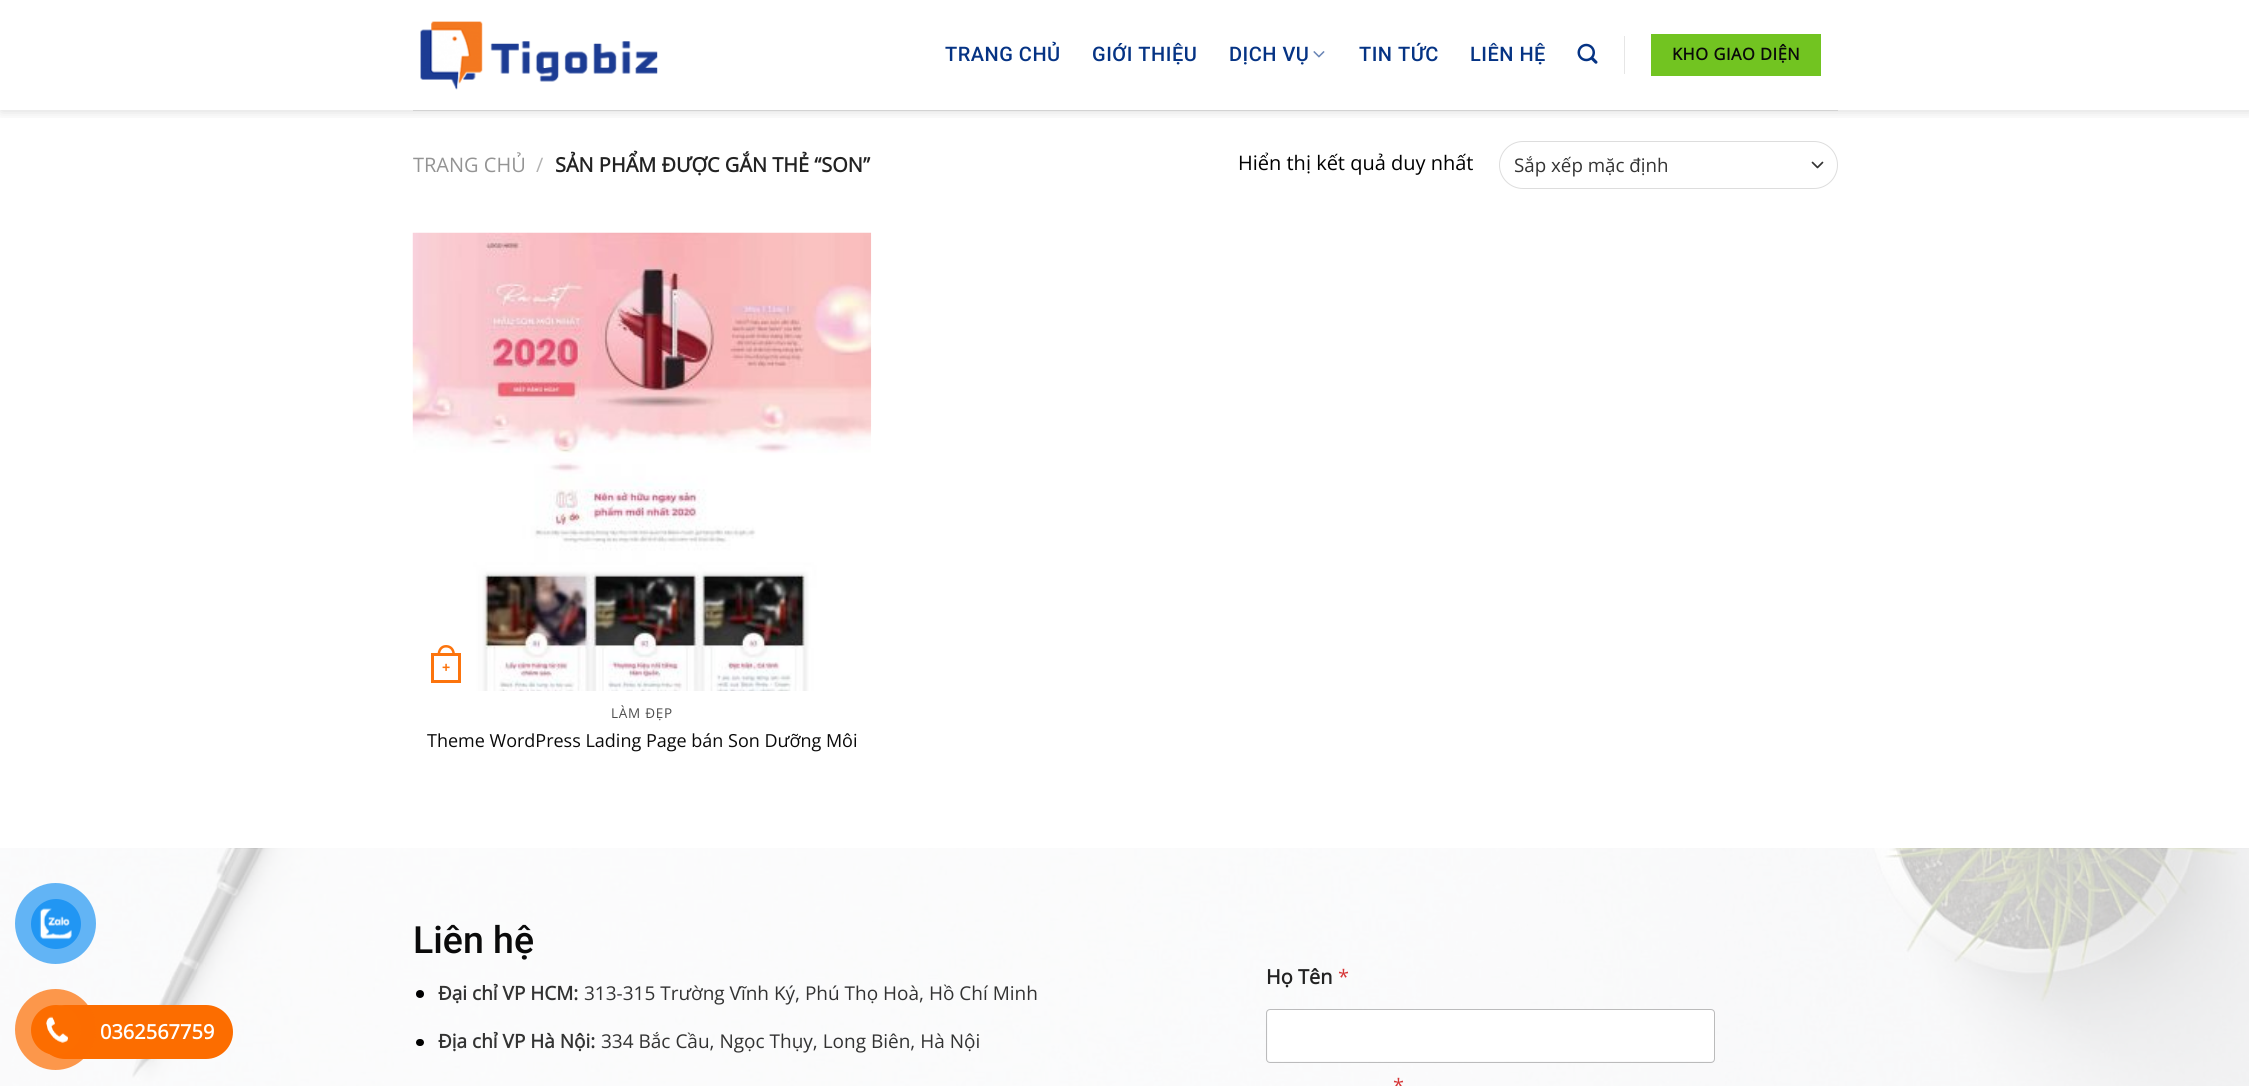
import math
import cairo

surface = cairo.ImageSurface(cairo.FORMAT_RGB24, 2249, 1086)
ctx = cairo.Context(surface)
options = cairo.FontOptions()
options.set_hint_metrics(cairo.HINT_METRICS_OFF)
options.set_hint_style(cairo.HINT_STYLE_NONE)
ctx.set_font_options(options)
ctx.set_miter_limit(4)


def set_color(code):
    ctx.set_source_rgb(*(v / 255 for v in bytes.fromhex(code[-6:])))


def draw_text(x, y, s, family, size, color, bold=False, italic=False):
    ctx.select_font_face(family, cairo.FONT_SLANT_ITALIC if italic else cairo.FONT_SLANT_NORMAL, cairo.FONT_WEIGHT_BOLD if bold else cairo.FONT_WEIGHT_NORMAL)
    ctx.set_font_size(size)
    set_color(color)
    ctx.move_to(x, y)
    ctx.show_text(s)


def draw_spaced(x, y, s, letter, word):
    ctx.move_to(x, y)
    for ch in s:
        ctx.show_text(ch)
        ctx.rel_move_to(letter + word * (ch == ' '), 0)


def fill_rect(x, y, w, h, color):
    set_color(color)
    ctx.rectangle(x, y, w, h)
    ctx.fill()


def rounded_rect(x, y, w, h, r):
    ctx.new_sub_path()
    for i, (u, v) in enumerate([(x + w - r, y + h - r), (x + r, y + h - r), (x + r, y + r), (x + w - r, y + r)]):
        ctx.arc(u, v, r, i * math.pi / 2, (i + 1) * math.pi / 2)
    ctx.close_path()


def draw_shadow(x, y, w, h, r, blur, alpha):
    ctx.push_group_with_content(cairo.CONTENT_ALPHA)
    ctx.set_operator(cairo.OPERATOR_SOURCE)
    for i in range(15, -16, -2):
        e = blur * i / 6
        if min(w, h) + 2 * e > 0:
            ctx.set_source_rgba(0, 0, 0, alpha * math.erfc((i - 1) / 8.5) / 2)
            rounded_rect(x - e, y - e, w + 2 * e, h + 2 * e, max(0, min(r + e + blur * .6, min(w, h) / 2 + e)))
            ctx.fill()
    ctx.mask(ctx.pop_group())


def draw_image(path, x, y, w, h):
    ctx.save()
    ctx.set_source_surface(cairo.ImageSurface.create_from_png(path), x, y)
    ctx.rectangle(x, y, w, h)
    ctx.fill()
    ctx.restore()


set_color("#ffffff")
ctx.paint()
draw_image("assets/img7.png", 0, 848, 2249, 238)
set_color("#62b4f5")
ctx.arc(55.5, 923.5, 40.5, 0, 2 * math.pi)
ctx.fill()
set_color("#2196f3")
ctx.arc(56, 924, 25, 0, 2 * math.pi)
ctx.fill()
draw_image("assets/img1.png", 39, 908, 33, 32)
set_color("#fc6d00")
rounded_rect(38, 1005, 195, 54, 27)
ctx.fill()
ctx.set_source_rgba(0.988, 0.427, 0, 0.7)
ctx.arc(55.5, 1029.5, 40.5, 0, 2 * math.pi)
ctx.fill()
set_color("#fc6d00")
ctx.arc(56, 1030, 25, 0, 2 * math.pi)
ctx.fill()
draw_image("assets/img2.png", 46, 1016, 22, 27)
draw_text(100, 1039, "0362567759", "Open Sans", 20, "#ffffff", bold=True)
ctx.save()
ctx.rectangle(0, 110, 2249, 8)
ctx.clip()
set_color("#000000")
draw_shadow(1, 1, 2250, 110, 0, 6, 0.15)
ctx.restore()
draw_image("assets/img3.png", 420, 21, 238, 69)
ctx.select_font_face("Roboto Medium")
set_color("#053384")
draw_spaced(945, 61, "TRANG CHỦ", 0.5, 0)
draw_spaced(1092, 61, "GIỚI THIỆU", 0.5, 0)
draw_spaced(1229, 61, "DỊCH VỤ", 0.5, 0)
draw_image("assets/img4.png", 1313, 51, 12, 7)
draw_spaced(1359, 61, "TIN TỨC", 0.5, 0)
draw_spaced(1470, 61, "LIÊN HỆ", 0.5, 0)
draw_image("assets/img5.png", 1577, 43, 21, 21)
fill_rect(1624, 36, 1, 38, "#e6e6e6")
fill_rect(1651, 34, 170, 42, "#72c421")
ctx.select_font_face("Open Sans", cairo.FONT_SLANT_NORMAL, cairo.FONT_WEIGHT_BOLD)
ctx.set_font_size(16.5)
set_color("#0a0a0a")
draw_spaced(1672, 60, "KHO GIAO DIỆN", 0.5, 0)
fill_rect(413, 110, 1425, 1, "#d3d3d3")
draw_text(413, 172, "TRANG CHỦ", "Open Sans", 20, "#949494")
draw_text(536, 172, "/", "Open Sans", 20, "#b2b2b2")
draw_text(555, 172, "SẢN PHẨM ĐƯỢC GẮN THẺ “SON”", "Open Sans", 20, "#222222", bold=True)
draw_text(1238, 170, "Hiển thị kết quả duy nhất", "Open Sans", 20, "#000000")
ctx.new_path()
ctx.move_to(1812.5, 162.5)
ctx.line_to(1817.5, 167.5)
ctx.line_to(1822.5, 162.5)
set_color("#333333")
ctx.set_line_width(1.7)
ctx.set_line_cap(cairo.LINE_CAP_ROUND)
ctx.set_line_join(cairo.LINE_JOIN_ROUND)
ctx.stroke()
rounded_rect(1499.5, 141.5, 338, 47, 23.5)
set_color("#dddddd")
ctx.set_line_width(1)
ctx.set_line_cap(cairo.LINE_CAP_BUTT)
ctx.set_line_join(cairo.LINE_JOIN_MITER)
ctx.stroke()
draw_text(1514, 172, "Sắp xếp mặc định", "Open Sans", 18.75, "#333333")
draw_image("assets/img6.png", 412, 232, 460, 459)
ctx.rectangle(432.5, 654.5, 27, 27)
set_color("#fc740d")
ctx.set_line_width(3)
ctx.stroke()
ctx.set_fill_rule(cairo.FILL_RULE_EVEN_ODD)
ctx.new_path()
ctx.move_to(446, 645)
ctx.curve_to(452, 645, 455, 649.5, 455, 655)
ctx.line_to(437.5, 655)
ctx.curve_to(437.5, 649.5, 440.5, 645, 446, 645)
ctx.close_path()
ctx.move_to(446, 647.5)
ctx.curve_to(450.5, 647.5, 452.5, 651, 452.5, 655)
ctx.line_to(440, 655)
ctx.curve_to(440, 651, 442, 647.5, 446, 647.5)
ctx.close_path()
ctx.fill()
draw_text(442, 672, "+", "Liberation Sans", 14, "#fc740d", bold=True)
ctx.select_font_face("Open Sans")
ctx.set_font_size(13.5)
set_color("#4d4d4d")
draw_spaced(611, 718, "LÀM ĐẸP", 0.75, 0)
draw_text(427, 747, "Theme WordPress Lading Page bán Son Dưỡng Môi", "Open Sans", 18, "#0a0a0a")
draw_text(413, 953, "Liên hệ", "Roboto Medium", 37.5, "#0a0a0a")
set_color("#000000")
ctx.new_path()
ctx.arc(420, 994, 4, 0, 2 * math.pi)
ctx.fill()
draw_text(438, 1000, "Đại chỉ VP HCM:", "Open Sans", 19, "#333333", bold=True)
draw_text(584, 1000, "313-315 Trường Vĩnh Ký, Phú Thọ Hoà, Hồ Chí Minh", "Open Sans", 19, "#333333")
set_color("#000000")
rounded_rect(416, 1039, 8, 7, 3.5)
ctx.fill()
draw_text(438, 1048, "Địa chỉ VP Hà Nội:", "Open Sans", 19, "#333333", bold=True)
draw_text(601, 1048, "334 Bắc Cầu, Ngọc Thụy, Long Biên, Hà Nội", "Open Sans", 19, "#333333")
draw_text(1266, 984, "Họ Tên", "Open Sans", 20, "#222222", bold=True)
draw_text(1338, 984, "*", "Open Sans", 20, "#d63637")
set_color("#ffffff")
rounded_rect(1268, 1010, 446, 51, 2.5)
ctx.fill()
rounded_rect(1266.5, 1009.5, 448, 53, 3.5)
ctx.set_source_rgba(0, 0, 0, 0.25)
ctx.set_line_width(1)
ctx.stroke()
draw_text(1393, 1093, "*", "Open Sans", 20, "#d63637")
surface.write_to_png("output.png")
